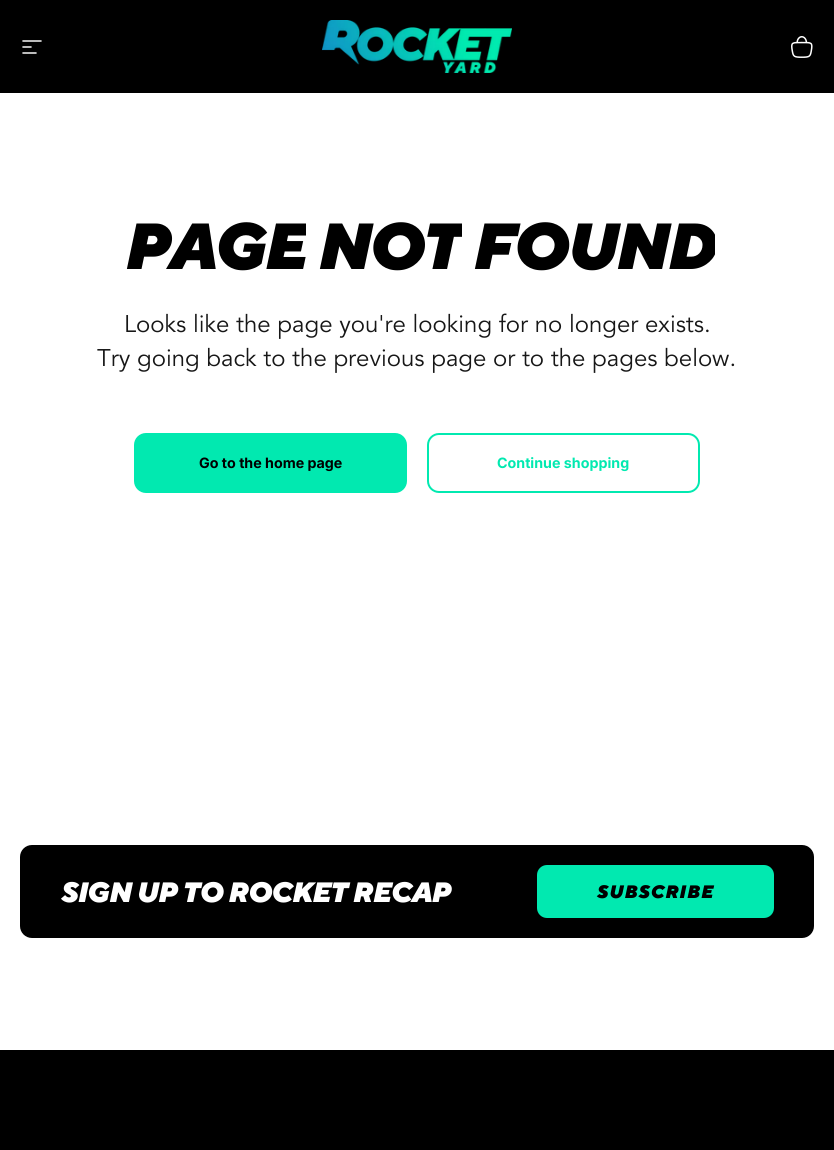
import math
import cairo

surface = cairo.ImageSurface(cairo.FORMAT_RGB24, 834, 1150)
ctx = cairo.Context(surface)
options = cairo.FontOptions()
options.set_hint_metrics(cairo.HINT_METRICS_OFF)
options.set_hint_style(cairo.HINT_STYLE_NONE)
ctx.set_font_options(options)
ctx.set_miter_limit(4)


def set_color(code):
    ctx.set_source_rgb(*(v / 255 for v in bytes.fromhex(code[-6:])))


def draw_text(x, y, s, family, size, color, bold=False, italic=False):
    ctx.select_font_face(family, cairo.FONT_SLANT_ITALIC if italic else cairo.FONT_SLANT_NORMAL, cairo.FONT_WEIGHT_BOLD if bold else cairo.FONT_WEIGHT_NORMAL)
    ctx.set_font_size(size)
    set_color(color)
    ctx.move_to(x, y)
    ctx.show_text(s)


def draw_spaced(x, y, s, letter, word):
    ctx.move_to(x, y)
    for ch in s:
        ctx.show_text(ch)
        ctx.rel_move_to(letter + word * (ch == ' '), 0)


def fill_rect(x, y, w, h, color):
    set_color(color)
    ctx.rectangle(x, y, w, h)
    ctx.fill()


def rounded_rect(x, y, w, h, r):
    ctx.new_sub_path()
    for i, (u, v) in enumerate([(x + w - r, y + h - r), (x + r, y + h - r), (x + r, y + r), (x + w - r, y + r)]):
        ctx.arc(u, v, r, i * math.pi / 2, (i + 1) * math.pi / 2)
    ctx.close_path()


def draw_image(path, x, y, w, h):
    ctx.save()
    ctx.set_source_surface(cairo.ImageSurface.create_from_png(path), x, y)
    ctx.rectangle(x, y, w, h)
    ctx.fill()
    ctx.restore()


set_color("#ffffff")
ctx.paint()
fill_rect(0, 0, 834, 93, "#000000")
ctx.new_path()
ctx.move_to(23, 41)
ctx.line_to(41, 41)
ctx.move_to(23, 47)
ctx.line_to(31, 47)
ctx.move_to(23, 53)
ctx.line_to(36, 53)
set_color("#ffffff")
ctx.set_line_width(1.5)
ctx.set_line_cap(cairo.LINE_CAP_ROUND)
ctx.stroke()
draw_image("assets/img1.png", 322, 20, 190, 53)
draw_image("assets/img2.png", 791, 36, 22, 22)
ctx.save()
ctx.rectangle(119, 208, 187, 75)
ctx.clip()
ctx.select_font_face("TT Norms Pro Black", cairo.FONT_SLANT_ITALIC)
ctx.set_font_size(65)
set_color("#000000")
draw_spaced(122, 269, "PAGE", -2.5, 0)
ctx.restore()
ctx.save()
ctx.rectangle(311, 208, 151, 75)
ctx.clip()
ctx.select_font_face("TT Norms Pro Black", cairo.FONT_SLANT_ITALIC)
ctx.set_font_size(65)
set_color("#000000")
draw_spaced(315, 269, "NOT", -2.5, 0)
ctx.restore()
ctx.save()
ctx.rectangle(467, 208, 248, 75)
ctx.clip()
ctx.select_font_face("TT Norms Pro Black", cairo.FONT_SLANT_ITALIC)
ctx.set_font_size(65)
set_color("#000000")
draw_spaced(470, 269, "FOUND", -2.5, 0)
ctx.restore()
draw_text(124, 332, "Looks like the page you're looking for no longer exists.", "Avenir", 24, "#171717")
draw_text(97, 366, "Try going back to the previous page or to the pages below.", "Avenir", 24, "#171717")
set_color("#01e9b0")
rounded_rect(135, 434, 271, 58, 11)
ctx.fill_preserve()
ctx.set_line_width(2)
ctx.set_line_cap(cairo.LINE_CAP_BUTT)
ctx.stroke()
draw_text(199, 468, "Go to the home page", "Inter", 14.25, "#000000", bold=True)
rounded_rect(428, 434, 271, 58, 11)
set_color("#01e9b0")
ctx.stroke()
draw_text(497, 468, "Continue shopping", "Inter", 14.25, "#01e9b0", bold=True)
set_color("#000000")
rounded_rect(20, 845, 794, 93, 12)
ctx.fill()
ctx.select_font_face("TT Norms Pro Black", cairo.FONT_SLANT_ITALIC)
ctx.set_font_size(28)
set_color("#ffffff")
draw_spaced(60, 902, "SIGN UP TO ROCKET RECAP", -0.8, 0)
set_color("#01e9b0")
rounded_rect(537, 865, 237, 53, 10)
ctx.fill()
ctx.select_font_face("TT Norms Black", cairo.FONT_SLANT_ITALIC)
ctx.set_font_size(18)
set_color("#000000")
draw_spaced(597, 898, "SUBSCRIBE", 1, 0)
fill_rect(0, 1050, 834, 100, "#000000")
surface.write_to_png("output.png")
